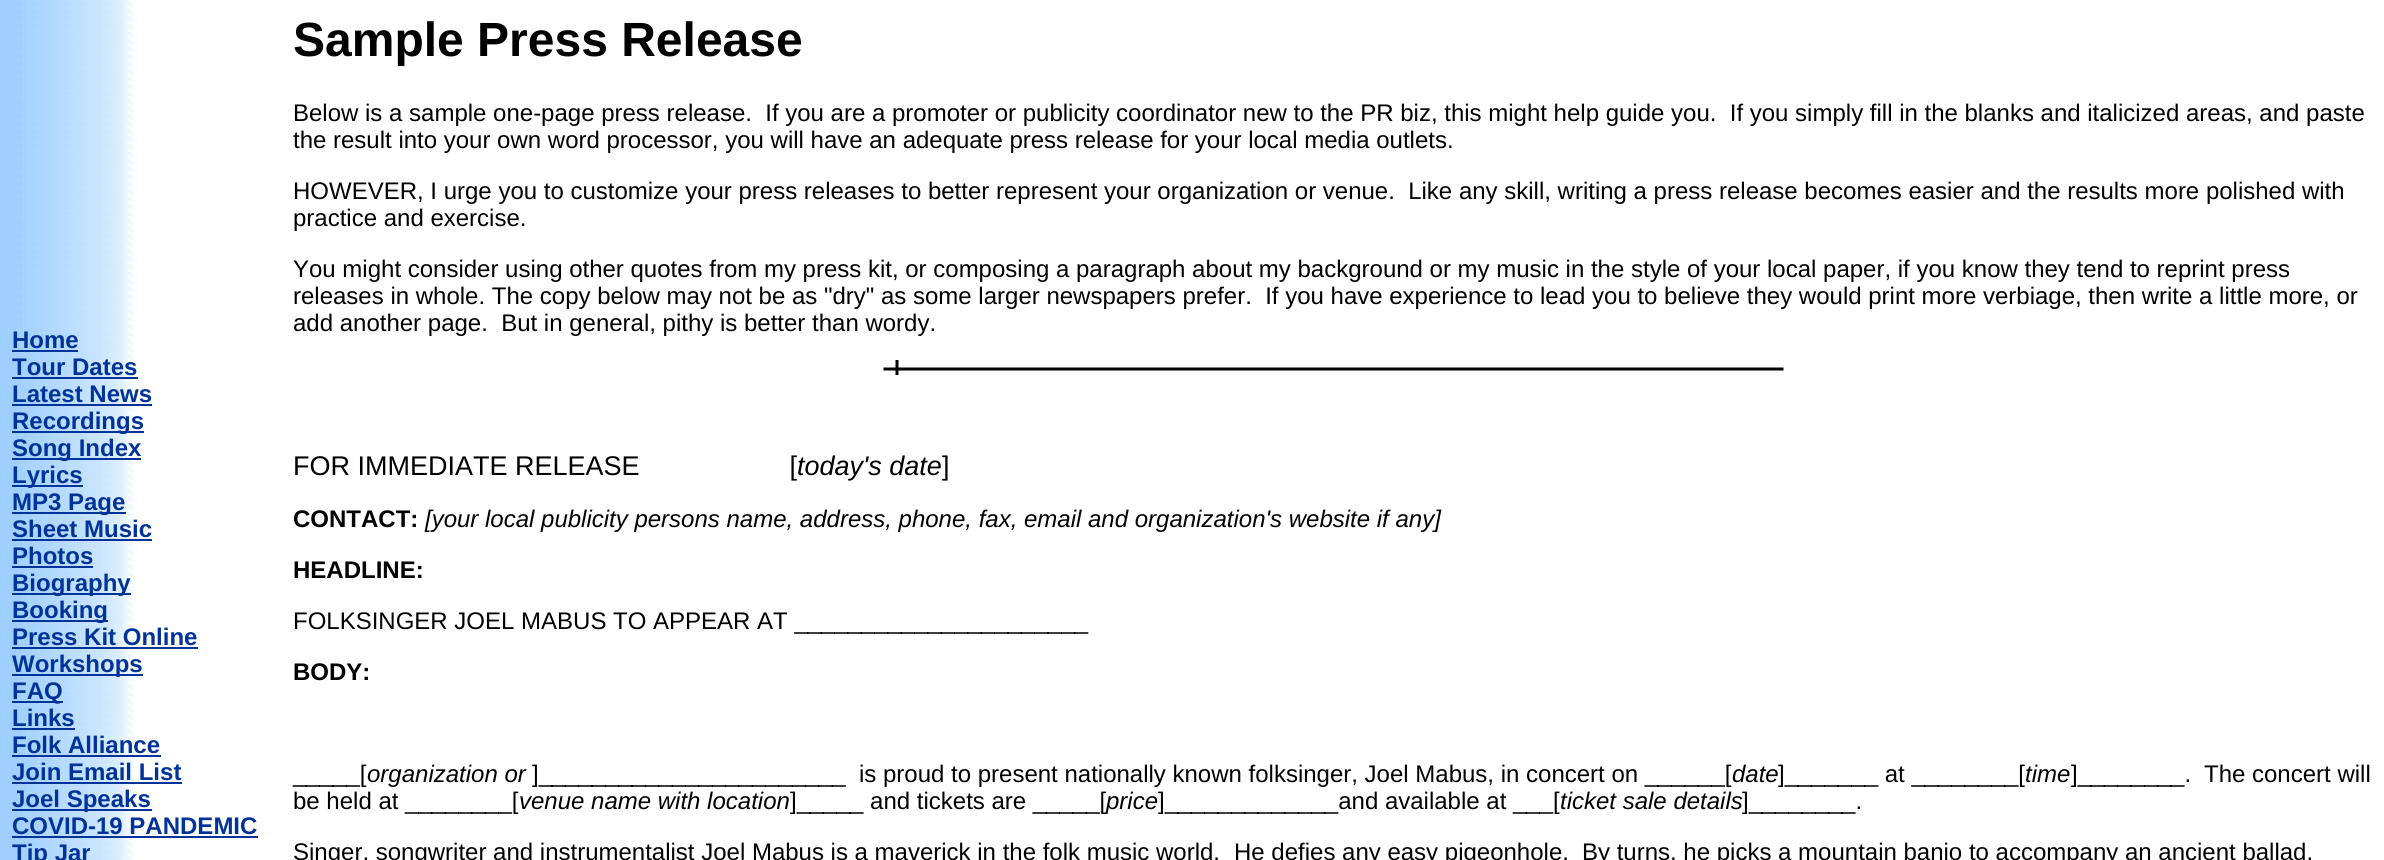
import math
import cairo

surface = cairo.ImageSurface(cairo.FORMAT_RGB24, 2384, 860)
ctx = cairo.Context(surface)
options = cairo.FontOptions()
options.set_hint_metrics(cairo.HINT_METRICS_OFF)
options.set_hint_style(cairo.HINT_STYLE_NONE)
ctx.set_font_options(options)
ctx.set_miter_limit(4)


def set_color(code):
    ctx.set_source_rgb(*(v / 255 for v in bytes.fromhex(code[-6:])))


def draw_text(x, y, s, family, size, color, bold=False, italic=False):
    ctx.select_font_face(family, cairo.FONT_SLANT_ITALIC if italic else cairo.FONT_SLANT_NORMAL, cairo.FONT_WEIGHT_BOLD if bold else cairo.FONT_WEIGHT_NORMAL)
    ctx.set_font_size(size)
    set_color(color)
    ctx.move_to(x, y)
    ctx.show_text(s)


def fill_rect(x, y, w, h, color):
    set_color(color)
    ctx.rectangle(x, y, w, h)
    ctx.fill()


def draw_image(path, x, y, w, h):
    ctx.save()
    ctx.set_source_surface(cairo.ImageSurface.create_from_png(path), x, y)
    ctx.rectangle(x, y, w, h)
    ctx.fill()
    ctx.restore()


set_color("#ffffff")
ctx.paint()
draw_image("assets/img1.png", 0, 0, 2384, 860)
draw_text(12, 348, "Home", "Liberation Sans", 24, "#003399", bold=True)
fill_rect(12, 350, 66, 2, "#003399")
draw_text(12, 375, "Tour Dates", "Liberation Sans", 24, "#003399", bold=True)
fill_rect(12, 377, 126, 2, "#003399")
draw_text(12, 402, "Latest News", "Liberation Sans", 24, "#003399", bold=True)
fill_rect(12, 404, 140, 2, "#003399")
fill_rect(12, 431, 132, 2, "#003399")
draw_text(12, 429, "Recordings", "Liberation Sans", 24, "#003399", bold=True)
fill_rect(12, 458, 129, 2, "#003399")
draw_text(12, 456, "Song Index", "Liberation Sans", 24, "#003399", bold=True)
fill_rect(12, 485, 71, 2, "#003399")
draw_text(12, 483, "Lyrics", "Liberation Sans", 24, "#003399", bold=True)
fill_rect(12, 512, 114, 2, "#003399")
draw_text(12, 510, "MP3 Page", "Liberation Sans", 24, "#003399", bold=True)
draw_text(12, 537, "Sheet Music", "Liberation Sans", 24, "#003399", bold=True)
fill_rect(12, 539, 140, 2, "#003399")
draw_text(12, 564, "Photos", "Liberation Sans", 24, "#003399", bold=True)
fill_rect(12, 566, 81, 2, "#003399")
fill_rect(12, 593, 119, 2, "#003399")
draw_text(12, 591, "Biography", "Liberation Sans", 24, "#003399", bold=True)
fill_rect(12, 620, 96, 2, "#003399")
draw_text(12, 618, "Booking", "Liberation Sans", 24, "#003399", bold=True)
draw_text(12, 645, "Press Kit Online", "Liberation Sans", 24, "#003399", bold=True)
fill_rect(12, 647, 186, 2, "#003399")
fill_rect(12, 674, 131, 2, "#003399")
draw_text(12, 672, "Workshops", "Liberation Sans", 24, "#003399", bold=True)
fill_rect(12, 701, 51, 2, "#003399")
draw_text(12, 699, "FAQ", "Liberation Sans", 24, "#003399", bold=True)
draw_text(12, 726, "Links", "Liberation Sans", 24, "#003399", bold=True)
fill_rect(12, 728, 63, 2, "#003399")
draw_text(12, 753, "Folk Alliance", "Liberation Sans", 24, "#003399", bold=True)
fill_rect(12, 755, 149, 2, "#003399")
draw_text(12, 780, "Join Email List", "Liberation Sans", 24, "#003399", bold=True)
fill_rect(12, 782, 170, 2, "#003399")
fill_rect(12, 809, 140, 2, "#003399")
draw_text(12, 807, "Joel Speaks", "Liberation Sans", 24, "#003399", bold=True)
draw_text(12, 834, "COVID-19 PANDEMIC", "Liberation Sans", 24, "#003399", bold=True)
fill_rect(12, 836, 246, 2, "#003399")
draw_text(12, 861, "Tip Jar", "Liberation Sans", 24, "#003399", bold=True)
draw_text(293, 56, "Sample Press Release", "Liberation Sans", 48, "#000000", bold=True)
draw_text(293, 121, "Below is a sample one-page press release.  If you are a promoter or publicity coordinator new to the PR biz, this might help guide you.  If you simply fill in the blanks and italicized areas, and paste", "Liberation Sans", 24, "#000000")
draw_text(293, 148, "the result into your own word processor, you will have an adequate press release for your local media outlets.", "Liberation Sans", 24, "#000000")
draw_text(293, 199, "HOWEVER, I urge you to customize your press releases to better represent your organization or venue.  Like any skill, writing a press release becomes easier and the results more polished with", "Liberation Sans", 24, "#000000")
draw_text(293, 226, "practice and exercise.", "Liberation Sans", 24, "#000000")
draw_text(293, 277, "You might consider using other quotes from my press kit, or composing a paragraph about my background or my music in the style of your local paper, if you know they tend to reprint press", "Liberation Sans", 24, "#000000")
draw_text(293, 304, "releases in whole. The copy below may not be as \"dry\" as some larger newspapers prefer.  If you have experience to lead you to believe they would print more verbiage, then write a little more, or", "Liberation Sans", 24, "#000000")
draw_text(293, 331, "add another page.  But in general, pithy is better than wordy.", "Liberation Sans", 24, "#000000")
draw_image("assets/img2.png", 883, 360, 901, 15)
draw_text(293, 475, "FOR IMMEDIATE RELEASE                    [", "Liberation Sans", 27, "#000000")
draw_text(797, 475, "today's date", "Liberation Sans", 27, "#000000", italic=True)
draw_text(942, 475, "]", "Liberation Sans", 27, "#000000")
draw_text(293, 527, "CONTACT:", "Liberation Sans", 24, "#000000", bold=True)
draw_text(425, 527, "[your local publicity persons name, address, phone, fax, email and organization's website if any]", "Liberation Sans", 24, "#000000", italic=True)
draw_text(293, 578, "HEADLINE:", "Liberation Sans", 24, "#000000", bold=True)
draw_text(293, 629, "FOLKSINGER JOEL MABUS TO APPEAR AT ______________________", "Liberation Sans", 24, "#000000")
draw_text(293, 680, "BODY:", "Liberation Sans", 24, "#000000", bold=True)
draw_text(293, 782, "_____[", "Liberation Sans", 24, "#000000")
draw_text(367, 782, "organization or", "Liberation Sans", 24, "#000000", italic=True)
draw_text(532, 782, "]_______________________", "Liberation Sans", 24, "#000000")
draw_text(859, 782, "is proud to present nationally known folksinger, Joel Mabus, in concert on ______[", "Liberation Sans", 24, "#000000")
draw_text(1732, 782, "date", "Liberation Sans", 24, "#000000", italic=True)
draw_text(1778, 782, "]_______ at ________[", "Liberation Sans", 24, "#000000")
draw_text(2025, 782, "time", "Liberation Sans", 24, "#000000", italic=True)
draw_text(2071, 782, "]________.", "Liberation Sans", 24, "#000000")
draw_text(2204, 782, "The concert will", "Liberation Sans", 24, "#000000")
draw_text(293, 809, "be held at ________[", "Liberation Sans", 24, "#000000")
draw_text(519, 809, "venue name with location", "Liberation Sans", 24, "#000000", italic=True)
draw_text(790, 809, "]_____ and tickets are _____[", "Liberation Sans", 24, "#000000")
draw_text(1106, 809, "price", "Liberation Sans", 24, "#000000", italic=True)
draw_text(1158, 809, "]_____________and available at ___[", "Liberation Sans", 24, "#000000")
draw_text(1560, 809, "ticket sale details", "Liberation Sans", 24, "#000000", italic=True)
draw_text(1742, 809, "]________.", "Liberation Sans", 24, "#000000")
draw_text(293, 860, "Singer, songwriter and instrumentalist Joel Mabus is a maverick in the folk music world.", "Liberation Sans", 24, "#000000")
draw_text(1234, 860, "He defies any easy pigeonhole.", "Liberation Sans", 24, "#000000")
draw_text(1582, 860, "By turns, he picks a mountain banjo to accompany an ancient ballad,", "Liberation Sans", 24, "#000000")
surface.write_to_png("output.png")
